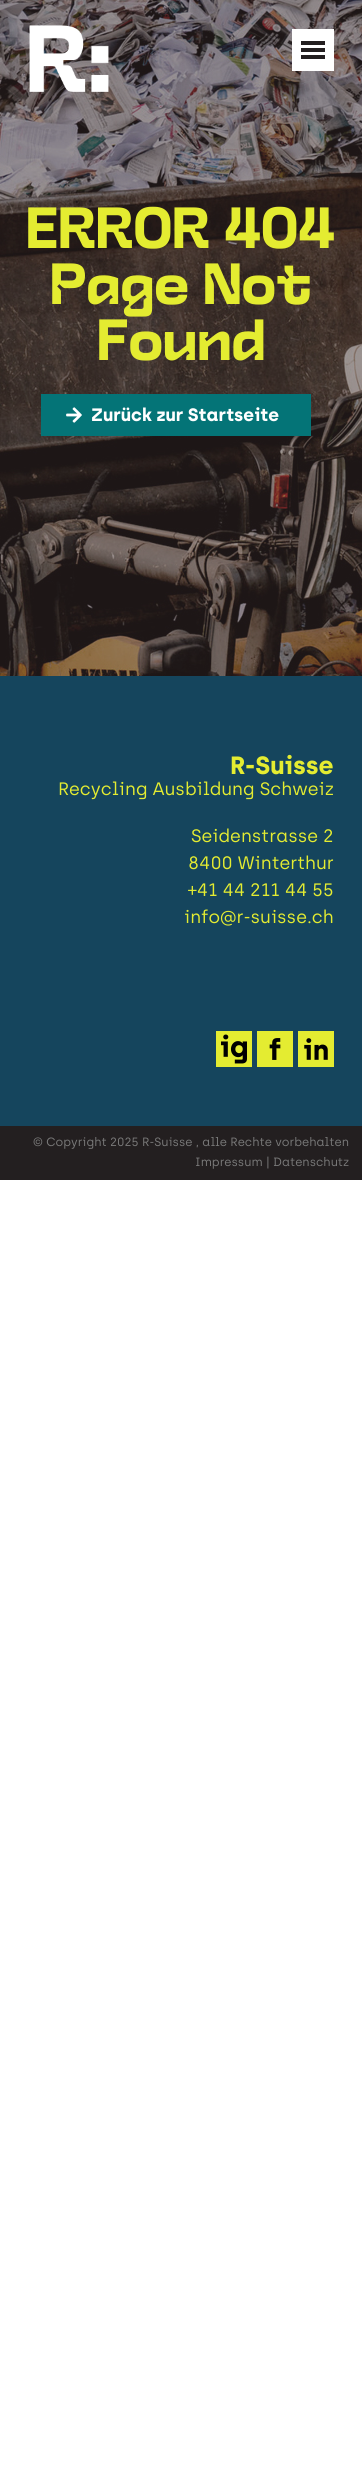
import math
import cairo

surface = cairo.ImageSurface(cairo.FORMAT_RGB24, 362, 2481)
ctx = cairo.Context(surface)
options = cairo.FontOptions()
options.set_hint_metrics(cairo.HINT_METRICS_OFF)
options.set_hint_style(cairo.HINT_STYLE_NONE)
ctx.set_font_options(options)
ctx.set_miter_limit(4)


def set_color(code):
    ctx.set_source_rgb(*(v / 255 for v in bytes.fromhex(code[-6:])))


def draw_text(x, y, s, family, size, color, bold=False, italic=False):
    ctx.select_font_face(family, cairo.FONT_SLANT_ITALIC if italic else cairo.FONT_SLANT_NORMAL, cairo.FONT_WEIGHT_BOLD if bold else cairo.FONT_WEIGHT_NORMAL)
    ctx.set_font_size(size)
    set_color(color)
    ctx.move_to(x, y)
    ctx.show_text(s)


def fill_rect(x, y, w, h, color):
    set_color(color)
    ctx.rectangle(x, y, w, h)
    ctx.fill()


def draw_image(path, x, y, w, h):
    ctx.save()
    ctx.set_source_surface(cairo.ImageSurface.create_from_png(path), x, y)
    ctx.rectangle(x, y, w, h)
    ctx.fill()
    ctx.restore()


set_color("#ffffff")
ctx.paint()
draw_image("assets/img2.png", 0, 0, 362, 676)
draw_image("assets/img1.png", 29, 25, 80, 67)
fill_rect(292, 29, 42, 42, "#ffffff")
fill_rect(301, 41, 24, 4, "#231f20")
fill_rect(301, 48, 24, 4, "#231f20")
fill_rect(301, 55, 24, 4, "#231f20")
draw_text(26, 248, "ERROR 404", "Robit", 56, "#e4ec31", bold=True)
draw_text(50, 304, "Page Not", "Robit", 56, "#e4ec31", bold=True)
draw_text(97, 360, "Found", "Robit", 56, "#e4ec31", bold=True)
fill_rect(41, 394, 270, 42, "#047477")
draw_image("assets/img3.png", 66, 407, 16, 16)
draw_text(91, 421, "Zurück zur Startseite", "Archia", 18, "#ffffff", bold=True)
fill_rect(0, 676, 362, 450, "#15455d")
draw_text(230, 774, "R-Suisse", "Archia", 25, "#e4ec31", bold=True)
draw_text(58, 795, "Recycling Ausbildung Schweiz", "Archia", 18, "#e4ec31")
draw_text(191, 842, "Seidenstrasse 2", "Archia", 18, "#e4ec31")
draw_text(188, 869, "8400 Winterthur", "Archia", 18, "#e4ec31")
draw_text(188, 896, "+41 44 211 44 55", "Archia", 18, "#e4ec31")
draw_text(184, 923, "info@r-suisse.ch", "Archia", 18, "#e4ec31")
fill_rect(216, 1031, 36, 36, "#e4ec31")
draw_image("assets/img4.png", 221, 1034, 26, 30)
fill_rect(257, 1031, 36, 36, "#e4ec31")
draw_image("assets/img5.png", 269, 1038, 12, 22)
fill_rect(298, 1031, 36, 36, "#e4ec31")
draw_image("assets/img6.png", 304, 1038, 24, 22)
fill_rect(0, 1126, 362, 54, "#231f20")
draw_text(33, 1146, "© Copyright 2025 R-Suisse , alle Rechte vorbehalten", "Archia", 12, "#7a7a7a")
draw_text(195, 1166, "Impressum | Datenschutz", "Archia", 12, "#7a7a7a")
surface.write_to_png("output.png")
